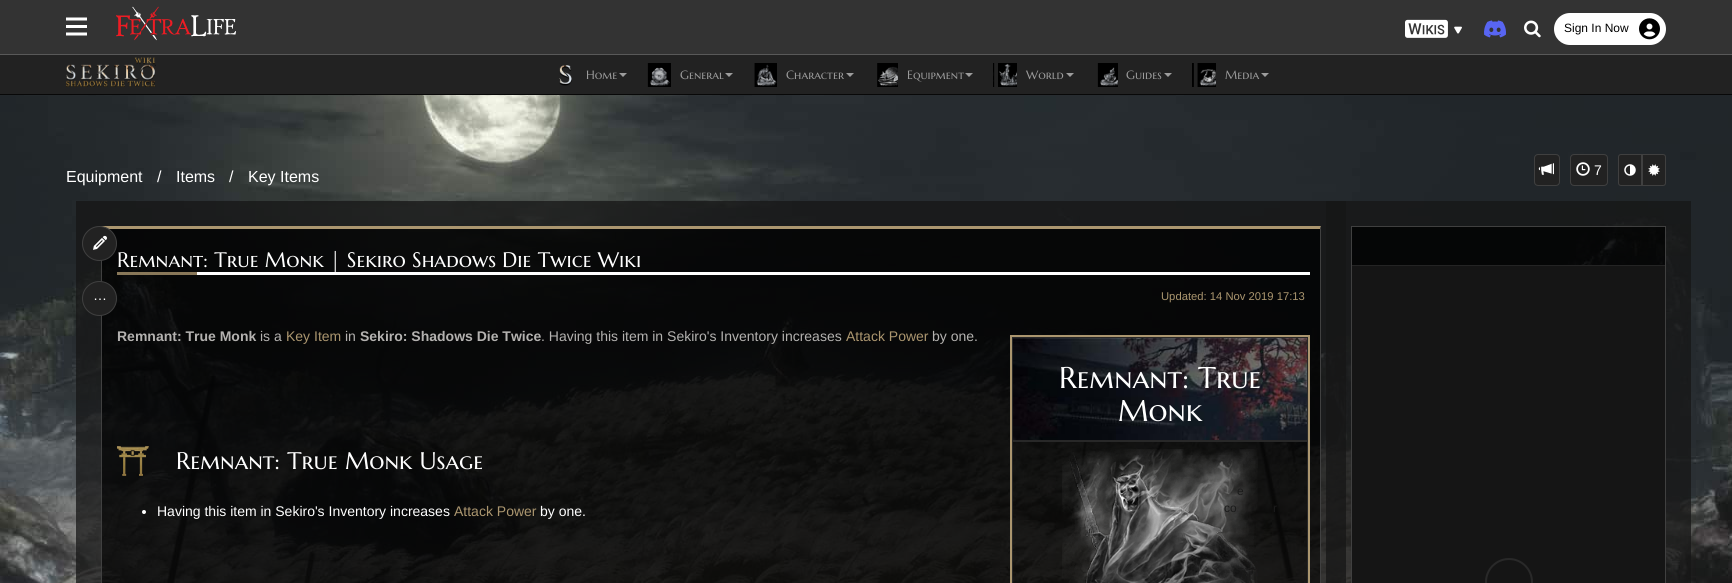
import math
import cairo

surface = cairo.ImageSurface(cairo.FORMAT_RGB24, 1732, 583)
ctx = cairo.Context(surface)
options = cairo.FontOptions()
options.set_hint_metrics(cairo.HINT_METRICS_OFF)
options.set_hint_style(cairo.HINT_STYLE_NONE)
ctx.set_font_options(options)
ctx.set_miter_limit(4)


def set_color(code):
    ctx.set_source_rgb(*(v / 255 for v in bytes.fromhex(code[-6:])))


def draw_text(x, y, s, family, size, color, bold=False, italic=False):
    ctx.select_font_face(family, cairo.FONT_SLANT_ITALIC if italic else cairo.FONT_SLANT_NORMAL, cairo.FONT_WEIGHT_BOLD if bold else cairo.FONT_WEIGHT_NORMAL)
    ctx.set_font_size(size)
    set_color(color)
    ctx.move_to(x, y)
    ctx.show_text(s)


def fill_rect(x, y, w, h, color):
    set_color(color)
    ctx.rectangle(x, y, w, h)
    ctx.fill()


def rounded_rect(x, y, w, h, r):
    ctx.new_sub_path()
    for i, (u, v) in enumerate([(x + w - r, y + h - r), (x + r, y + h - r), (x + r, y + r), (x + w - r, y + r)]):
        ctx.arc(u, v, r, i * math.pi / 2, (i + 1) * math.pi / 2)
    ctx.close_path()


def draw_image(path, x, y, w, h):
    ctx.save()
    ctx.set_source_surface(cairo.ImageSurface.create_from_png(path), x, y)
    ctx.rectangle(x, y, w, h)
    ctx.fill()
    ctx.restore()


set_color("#ffffff")
ctx.paint()
fill_rect(0, 0, 1732, 54, "#333333")
fill_rect(0, 54, 1732, 1, "#595959")
draw_image("assets/img1.png", 66, 17, 21, 19)
draw_image("assets/img2.png", 116, 6, 120, 35)
draw_image("assets/img3.png", 1405, 19, 57, 19)
draw_image("assets/img4.png", 1484, 20, 22, 18)
draw_image("assets/img5.png", 1524, 20, 17, 18)
set_color("#ffffff")
rounded_rect(1554, 13, 112, 32, 16)
ctx.fill()
draw_text(1564, 32, "Sign In Now", "Liberation Sans", 12, "#000000")
draw_image("assets/img6.png", 1639, 18, 21, 22)
fill_rect(0, 55, 1732, 39, "#222222")
fill_rect(0, 94, 1732, 1, "#080808")
draw_image("assets/img7.png", 66, 57, 90, 30)
draw_image("assets/img8.png", 559, 65, 13, 21)
draw_text(586, 79, "Home", "Marcellus SC", 12, "#9d9d9d")
ctx.new_path()
ctx.move_to(619, 73)
ctx.line_to(627, 73)
ctx.line_to(623, 77)
ctx.close_path()
ctx.fill()
draw_image("assets/img9.png", 647, 63, 24, 24)
draw_text(680, 79, "General", "Marcellus SC", 12, "#9d9d9d")
ctx.new_path()
ctx.move_to(725, 73)
ctx.line_to(733, 73)
ctx.line_to(729, 77)
ctx.close_path()
ctx.fill()
draw_image("assets/img10.png", 754, 63, 23, 24)
draw_text(786, 79, "Character", "Marcellus SC", 12, "#9d9d9d")
ctx.new_path()
ctx.move_to(846, 73)
ctx.line_to(854, 73)
ctx.line_to(850, 77)
ctx.close_path()
ctx.fill()
draw_image("assets/img11.png", 877, 63, 21, 24)
draw_text(907, 79, "Equipment", "Marcellus SC", 12, "#9d9d9d")
ctx.new_path()
ctx.move_to(965, 73)
ctx.line_to(973, 73)
ctx.line_to(969, 77)
ctx.close_path()
ctx.fill()
draw_image("assets/img12.png", 993, 63, 24, 24)
draw_text(1026, 79, "World", "Marcellus SC", 12, "#9d9d9d")
ctx.new_path()
ctx.move_to(1066, 73)
ctx.line_to(1074, 73)
ctx.line_to(1070, 77)
ctx.close_path()
ctx.fill()
draw_image("assets/img13.png", 1097, 63, 21, 24)
draw_text(1126, 79, "Guides", "Marcellus SC", 12, "#9d9d9d")
ctx.new_path()
ctx.move_to(1164, 73)
ctx.line_to(1172, 73)
ctx.line_to(1168, 77)
ctx.close_path()
ctx.fill()
draw_image("assets/img14.png", 1192, 63, 24, 24)
draw_text(1225, 79, "Media", "Marcellus SC", 12, "#9d9d9d")
ctx.new_path()
ctx.move_to(1261, 73)
ctx.line_to(1269, 73)
ctx.line_to(1265, 77)
ctx.close_path()
ctx.fill()
draw_image("assets/img15.png", 0, 95, 1732, 488)
draw_text(66, 182, "Equipment", "Liberation Sans", 16, "#ffffff")
draw_text(157, 182, "/", "Liberation Sans", 16, "#ffffff")
draw_text(176, 182, "Items", "Liberation Sans", 16, "#ffffff")
draw_text(229, 182, "/", "Liberation Sans", 16, "#ffffff")
draw_text(248, 182, "Key Items", "Liberation Sans", 16, "#ffffff")
set_color("#222222")
rounded_rect(1534.5, 154.5, 25, 31, 3.5)
ctx.fill_preserve()
set_color("#404040")
ctx.set_line_width(1)
ctx.stroke()
draw_image("assets/img16.png", 1538, 163, 16, 12)
set_color("#222222")
rounded_rect(1570.5, 154.5, 37, 31, 3.5)
ctx.fill_preserve()
set_color("#404040")
ctx.stroke()
draw_image("assets/img17.png", 1576, 162, 14, 14)
draw_text(1594, 175, "7", "Liberation Sans", 14, "#ffffff")
set_color("#222222")
ctx.new_path()
ctx.move_to(1621, 154.5)
ctx.line_to(1641.5, 154.5)
ctx.line_to(1641.5, 185.5)
ctx.line_to(1621, 185.5)
ctx.curve_to(1619.5, 185.5, 1618.5, 184.5, 1618.5, 183)
ctx.line_to(1618.5, 157)
ctx.curve_to(1618.5, 155.5, 1619.5, 154.5, 1621, 154.5)
ctx.close_path()
ctx.fill_preserve()
set_color("#404040")
ctx.stroke()
draw_image("assets/img18.png", 1624, 164, 12, 12)
set_color("#222222")
ctx.new_path()
ctx.move_to(1642.5, 154.5)
ctx.line_to(1663, 154.5)
ctx.curve_to(1664.5, 154.5, 1665.5, 155.5, 1665.5, 157)
ctx.line_to(1665.5, 183)
ctx.curve_to(1665.5, 184.5, 1664.5, 185.5, 1663, 185.5)
ctx.line_to(1642.5, 185.5)
ctx.close_path()
ctx.fill_preserve()
set_color("#404040")
ctx.stroke()
draw_image("assets/img19.png", 1648, 164, 12, 12)
ctx.rectangle(1338.5, 213.5, 340, 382)
ctx.set_source_rgba(0.086, 0.086, 0.086, 0.75)
ctx.set_line_width(25)
ctx.stroke()
ctx.rectangle(88.5, 213.5, 1245, 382)
ctx.stroke()
ctx.set_source_rgba(0, 0, 0, 0.85)
ctx.rectangle(102, 229, 1218, 354)
ctx.fill()
set_color("#ab966f")
ctx.new_path()
ctx.move_to(101, 226)
ctx.line_to(1321, 226)
ctx.line_to(1320, 229)
ctx.line_to(102, 229)
ctx.close_path()
ctx.fill()
set_color("#404040")
ctx.new_path()
ctx.move_to(101, 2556)
ctx.line_to(101, 226)
ctx.line_to(102, 229)
ctx.line_to(102, 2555)
ctx.close_path()
ctx.fill()
set_color("#222222")
ctx.arc(99.5, 243.5, 17, 0, 2 * math.pi)
ctx.fill_preserve()
set_color("#404040")
ctx.set_line_width(1)
ctx.stroke()
draw_image("assets/img20.png", 93, 235, 14, 15)
set_color("#222222")
ctx.arc(99.5, 298.5, 17, 0, 2 * math.pi)
ctx.fill_preserve()
set_color("#404040")
ctx.stroke()
draw_text(93, 300, "…", "Liberation Sans", 14, "#ffffff")
set_color("#404040")
ctx.new_path()
ctx.move_to(1321, 226)
ctx.line_to(1321, 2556)
ctx.line_to(1320, 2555)
ctx.line_to(1320, 229)
ctx.close_path()
ctx.fill()
fill_rect(197, 272, 1113, 3, "#ffffff")
draw_text(117, 267, "Remnant: True Monk | Sekiro Shadows Die Twice Wiki", "Marcellus SC", 21, "#ffffff")
fill_rect(117, 272, 80, 3, "#897859")
draw_text(1161, 300, "Updated: 14 Nov 2019 17:13", "Liberation Sans", 11.25, "#ab966f")
draw_text(117, 341, "Remnant: True Monk", "Liberation Sans", 14, "#b4b2b0", bold=True)
draw_text(260, 341, "is a", "Liberation Sans", 14, "#b4b2b0")
draw_text(286, 341, "Key Item", "Liberation Sans", 14, "#ab966f")
draw_text(345, 341, "in", "Liberation Sans", 14, "#b4b2b0")
draw_text(360, 341, "Sekiro: Shadows Die Twice", "Liberation Sans", 14, "#b4b2b0", bold=True)
draw_text(541, 341, ". Having this item in Sekiro's Inventory increases", "Liberation Sans", 14, "#b4b2b0")
draw_text(846, 341, "Attack Power", "Liberation Sans", 14, "#ab966f")
draw_text(932, 341, "by one.", "Liberation Sans", 14, "#b4b2b0")
ctx.rectangle(1011, 336, 298, 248)
set_color("#ab966f")
ctx.set_line_width(2)
ctx.stroke()
draw_image("assets/img21.png", 1013, 338, 294, 102)
ctx.rectangle(1012.5, 337.5, 295, 103)
set_color("#282828")
ctx.set_line_width(1)
ctx.stroke()
draw_text(1059, 388, "Remnant: True", "Marcellus SC", 30, "#ffffff")
draw_text(1118, 421, "Monk", "Marcellus SC", 30, "#ffffff")
ctx.rectangle(1012.5, 441.5, 295, 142)
set_color("#282828")
ctx.stroke()
draw_image("assets/img22.png", 1062, 449, 196, 134)
draw_image("assets/img23.png", 117, 446, 32, 30)
draw_text(176, 469, "Remnant: True Monk Usage", "Marcellus SC", 24, "#ffffff")
ctx.new_path()
ctx.arc(144, 512, 2, 0, 2 * math.pi)
ctx.fill()
draw_text(157, 516, "Having this item in Sekiro's Inventory increases", "Liberation Sans", 14, "#ffffff")
draw_text(454, 516, "Attack Power", "Liberation Sans", 14, "#ab966f")
draw_text(540, 516, "by one.", "Liberation Sans", 14, "#ffffff")
draw_text(1237, 495, "e", "Liberation Sans", 12, "#1b1b1b")
draw_text(1224, 512, "co", "Liberation Sans", 12, "#1b1b1b")
draw_text(1273, 512, "r", "Liberation Sans", 12, "#1b1b1b")
ctx.set_source_rgba(0, 0, 0, 0.85)
ctx.rectangle(1352, 227, 313, 38)
ctx.fill()
ctx.rectangle(1351.5, 226.5, 314, 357)
set_color("#404040")
ctx.stroke()
fill_rect(1352, 265, 313, 1, "#242424")
fill_rect(1352, 266, 313, 317, "#151515")
ctx.arc(1509, 582, 23, 0, 2 * math.pi)
set_color("#292929")
ctx.set_line_width(2)
ctx.stroke()
surface.write_to_png("output.png")
